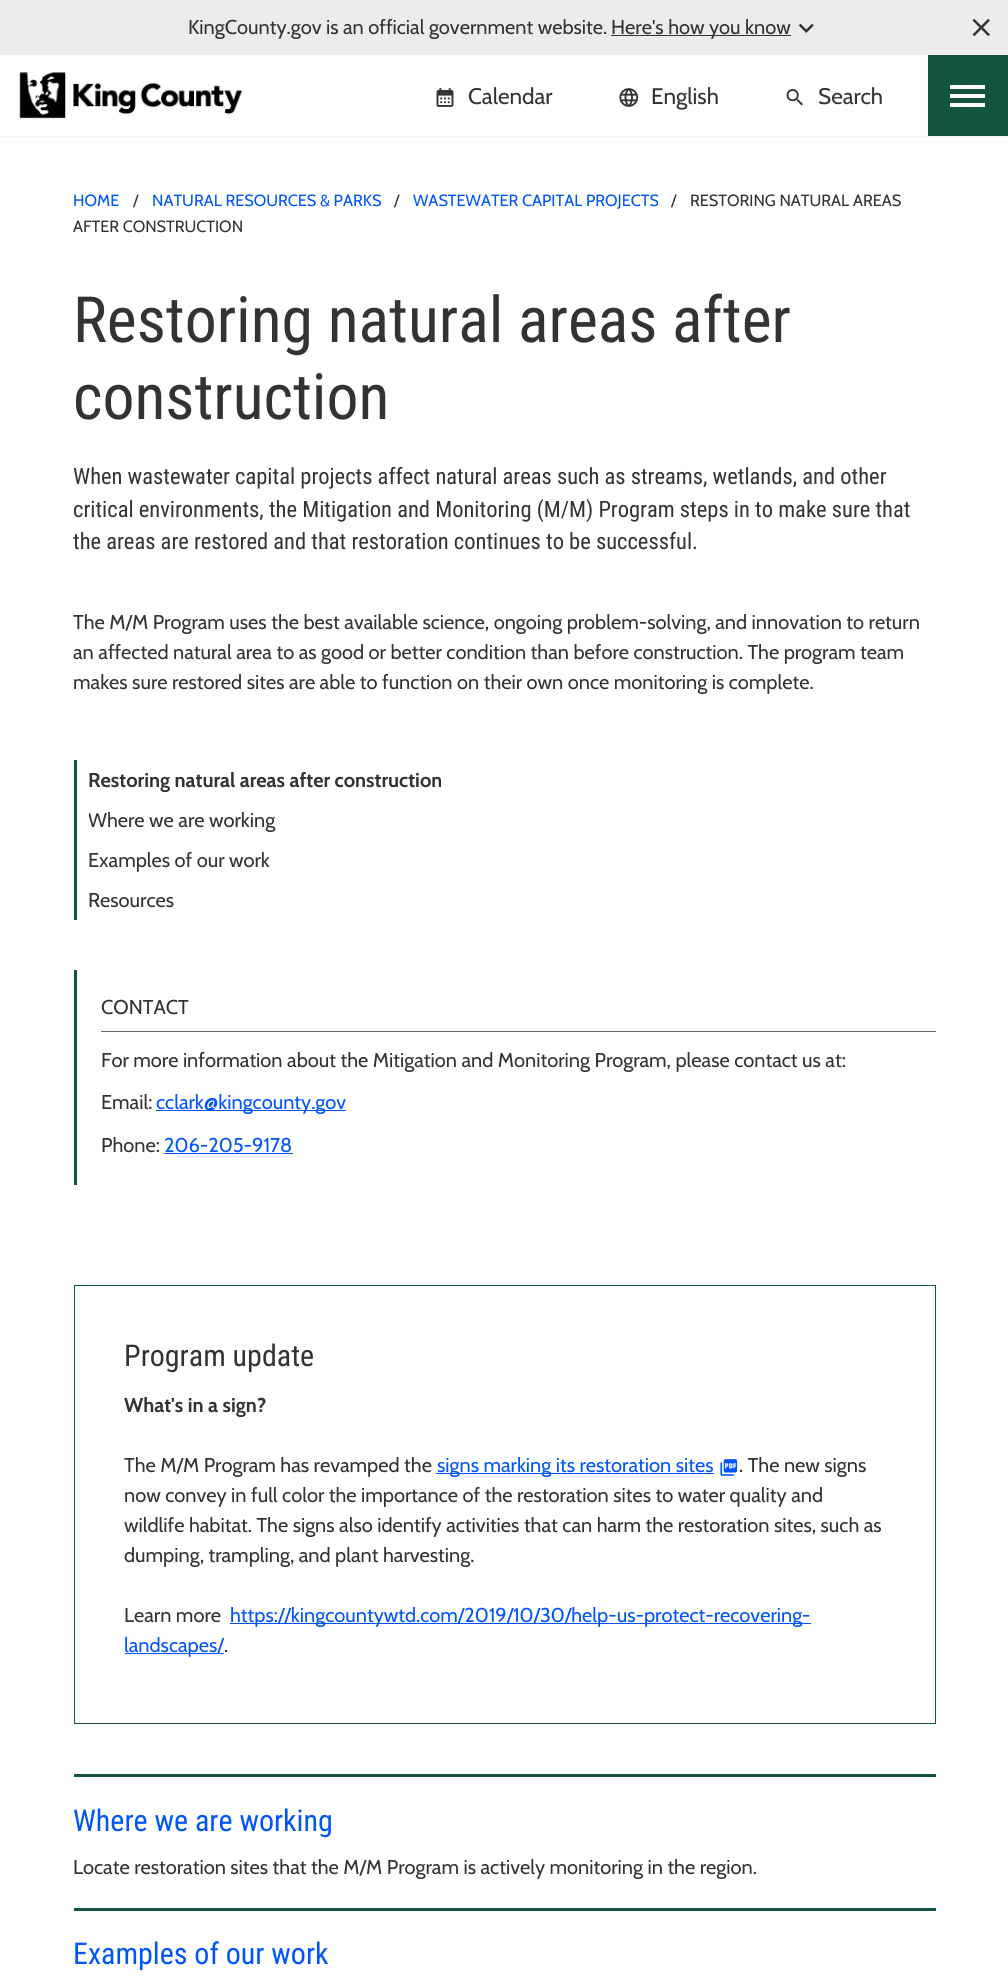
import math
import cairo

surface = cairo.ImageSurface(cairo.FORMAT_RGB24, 1008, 1986)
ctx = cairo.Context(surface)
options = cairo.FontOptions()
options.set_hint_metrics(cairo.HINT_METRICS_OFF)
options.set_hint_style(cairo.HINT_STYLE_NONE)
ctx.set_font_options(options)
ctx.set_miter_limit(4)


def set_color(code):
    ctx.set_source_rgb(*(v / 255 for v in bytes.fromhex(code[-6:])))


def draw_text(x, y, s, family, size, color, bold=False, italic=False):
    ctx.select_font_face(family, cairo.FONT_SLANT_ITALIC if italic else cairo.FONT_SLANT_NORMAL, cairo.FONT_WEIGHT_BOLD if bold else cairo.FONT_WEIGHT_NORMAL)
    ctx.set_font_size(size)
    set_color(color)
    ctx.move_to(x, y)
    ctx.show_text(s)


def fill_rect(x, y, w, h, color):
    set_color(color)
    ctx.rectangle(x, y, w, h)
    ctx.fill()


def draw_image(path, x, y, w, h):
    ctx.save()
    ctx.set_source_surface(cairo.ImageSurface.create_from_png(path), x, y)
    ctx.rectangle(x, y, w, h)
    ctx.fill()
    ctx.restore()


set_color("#ffffff")
ctx.paint()
fill_rect(0, 0, 1008, 55, "#ececec")
draw_text(188, 34, "KingCounty.gov is an official government website.", "Cabin", 20, "#333333")
fill_rect(611, 35, 180, 1, "#333333")
draw_text(611, 34, "Here's how you know", "Cabin", 20, "#333333")
draw_image("assets/img1.png", 798, 23, 16, 10)
draw_image("assets/img2.png", 972, 18, 18, 19)
fill_rect(0, 136, 1008, 1, "#f4f4f4")
draw_image("assets/img3.png", 19, 72, 224, 47)
draw_image("assets/img4.png", 436, 88, 18, 19)
draw_text(468, 104, "Calendar", "Cabin", 22.5, "#333333")
draw_image("assets/img5.png", 619, 88, 20, 19)
draw_text(651, 104, "English", "Cabin", 22.5, "#333333")
draw_image("assets/img6.png", 786, 89, 17, 17)
draw_text(818, 104, "Search", "Cabin", 22.5, "#333333")
fill_rect(928, 55, 80, 81, "#125440")
fill_rect(950, 85, 35, 4, "#ffffff")
fill_rect(950, 94, 35, 4, "#ffffff")
fill_rect(950, 103, 35, 4, "#ffffff")
draw_text(73, 206, "HOME", "Cabin", 16.25, "#0056f5")
draw_text(133, 206, "/", "Cabin", 16.25, "#333333")
draw_text(152, 206, "NATURAL RESOURCES & PARKS", "Cabin", 16.25, "#0056f5")
draw_text(394, 206, "/", "Cabin", 16.25, "#333333")
draw_text(413, 206, "WASTEWATER CAPITAL PROJECTS", "Cabin", 16.25, "#0056f5")
draw_text(671, 206, "/", "Cabin", 16.25, "#333333")
draw_text(690, 206, "RESTORING NATURAL AREAS", "Cabin", 16.25, "#333333")
draw_text(73, 232, "AFTER CONSTRUCTION", "Cabin", 16.25, "#333333")
draw_text(73, 342, "Restoring natural areas after", "Roboto Condensed", 63.75, "#333333")
draw_text(73, 419, "construction", "Roboto Condensed", 63.75, "#333333")
draw_text(73, 484, "When wastewater capital projects affect natural areas such as streams, wetlands, and other", "Roboto Condensed", 22.5, "#333333")
draw_text(73, 517, "critical environments, the Mitigation and Monitoring (M/M) Program steps in to make sure that", "Roboto Condensed", 22.5, "#333333")
draw_text(73, 549, "the areas are restored and that restoration continues to be successful.", "Roboto Condensed", 22.5, "#333333")
draw_text(73, 629, "The M/M Program uses the best available science, ongoing problem-solving, and innovation to return", "Cabin", 20, "#333333")
draw_text(73, 659, "an affected natural area to as good or better condition than before construction. The program team", "Cabin", 20, "#333333")
draw_text(73, 689, "makes sure restored sites are able to function on their own once monitoring is complete.", "Cabin", 20, "#333333")
fill_rect(74, 760, 3, 160, "#125440")
draw_text(88, 787, "Restoring natural areas after construction", "Cabin", 20, "#333333", bold=True)
ctx.save()
ctx.rectangle(89, 800, 835, 40)
ctx.clip()
draw_text(88, 827, "Where we are working", "Cabin", 20, "#333333")
ctx.restore()
draw_text(88, 867, "Examples of our work", "Cabin", 20, "#333333")
draw_text(88, 907, "Resources", "Cabin", 20, "#333333")
fill_rect(74, 970, 3, 215, "#125440")
fill_rect(101, 1031, 835, 1, "#666666")
draw_text(101, 1014, "CONTACT", "Cabin", 20, "#333333")
draw_text(101, 1067, "For more information about the Mitigation and Monitoring Program, please contact us at:", "Cabin", 20, "#333333")
draw_text(101, 1109, "Email:", "Cabin", 20, "#333333")
fill_rect(156, 1110, 190, 1, "#0056f5")
draw_text(156, 1109, "cclark@kingcounty.gov", "Cabin", 20, "#0056f5")
draw_text(101, 1152, "Phone:", "Cabin", 20, "#333333")
draw_text(164, 1152, "206-205-9178", "Cabin", 20, "#0056f5")
fill_rect(164, 1153, 129, 1, "#0056f5")
ctx.rectangle(74.5, 1285.5, 861, 438)
set_color("#125440")
ctx.set_line_width(1)
ctx.stroke()
draw_text(124, 1366, "Program update", "Roboto Condensed", 30, "#333333")
draw_text(124, 1412, "What's in a sign?", "Cabin", 20, "#333333", bold=True)
draw_text(124, 1472, "The M/M Program has revamped the", "Cabin", 20, "#333333")
fill_rect(436, 1473, 278, 1, "#0056f5")
draw_text(437, 1472, "signs marking its restoration sites", "Cabin", 20, "#0056f5")
draw_image("assets/img7.png", 720, 1459, 18, 17)
draw_text(739, 1472, ". The new signs", "Cabin", 20, "#333333")
draw_text(124, 1502, "now convey in full color the importance of the restoration sites to water quality and", "Cabin", 20, "#333333")
draw_text(124, 1532, "wildlife habitat. The signs also identify activities that can harm the restoration sites, such as", "Cabin", 20, "#333333")
draw_text(124, 1562, "dumping, trampling, and plant harvesting.", "Cabin", 20, "#333333")
draw_text(124, 1622, "Learn more", "Cabin", 20, "#333333")
fill_rect(230, 1623, 581, 1, "#0056f5")
draw_text(230, 1622, "https://kingcountywtd.com/2019/10/30/help-us-protect-recovering-", "Cabin", 20, "#0056f5")
fill_rect(125, 1653, 99, 1, "#0056f5")
draw_text(124, 1652, "landscapes/", "Cabin", 20, "#0056f5")
draw_text(224, 1652, ".", "Cabin", 20, "#333333")
fill_rect(74, 1774, 862, 3, "#125440")
draw_text(73, 1831, "Where we are working", "Roboto Condensed", 30, "#0056f5")
draw_text(73, 1874, "Locate restoration sites that the M/M Program is actively monitoring in the region.", "Cabin", 20, "#333333")
fill_rect(74, 1908, 862, 3, "#125440")
draw_text(73, 1964, "Examples of our work", "Roboto Condensed", 30, "#0056f5")
surface.write_to_png("output.png")
